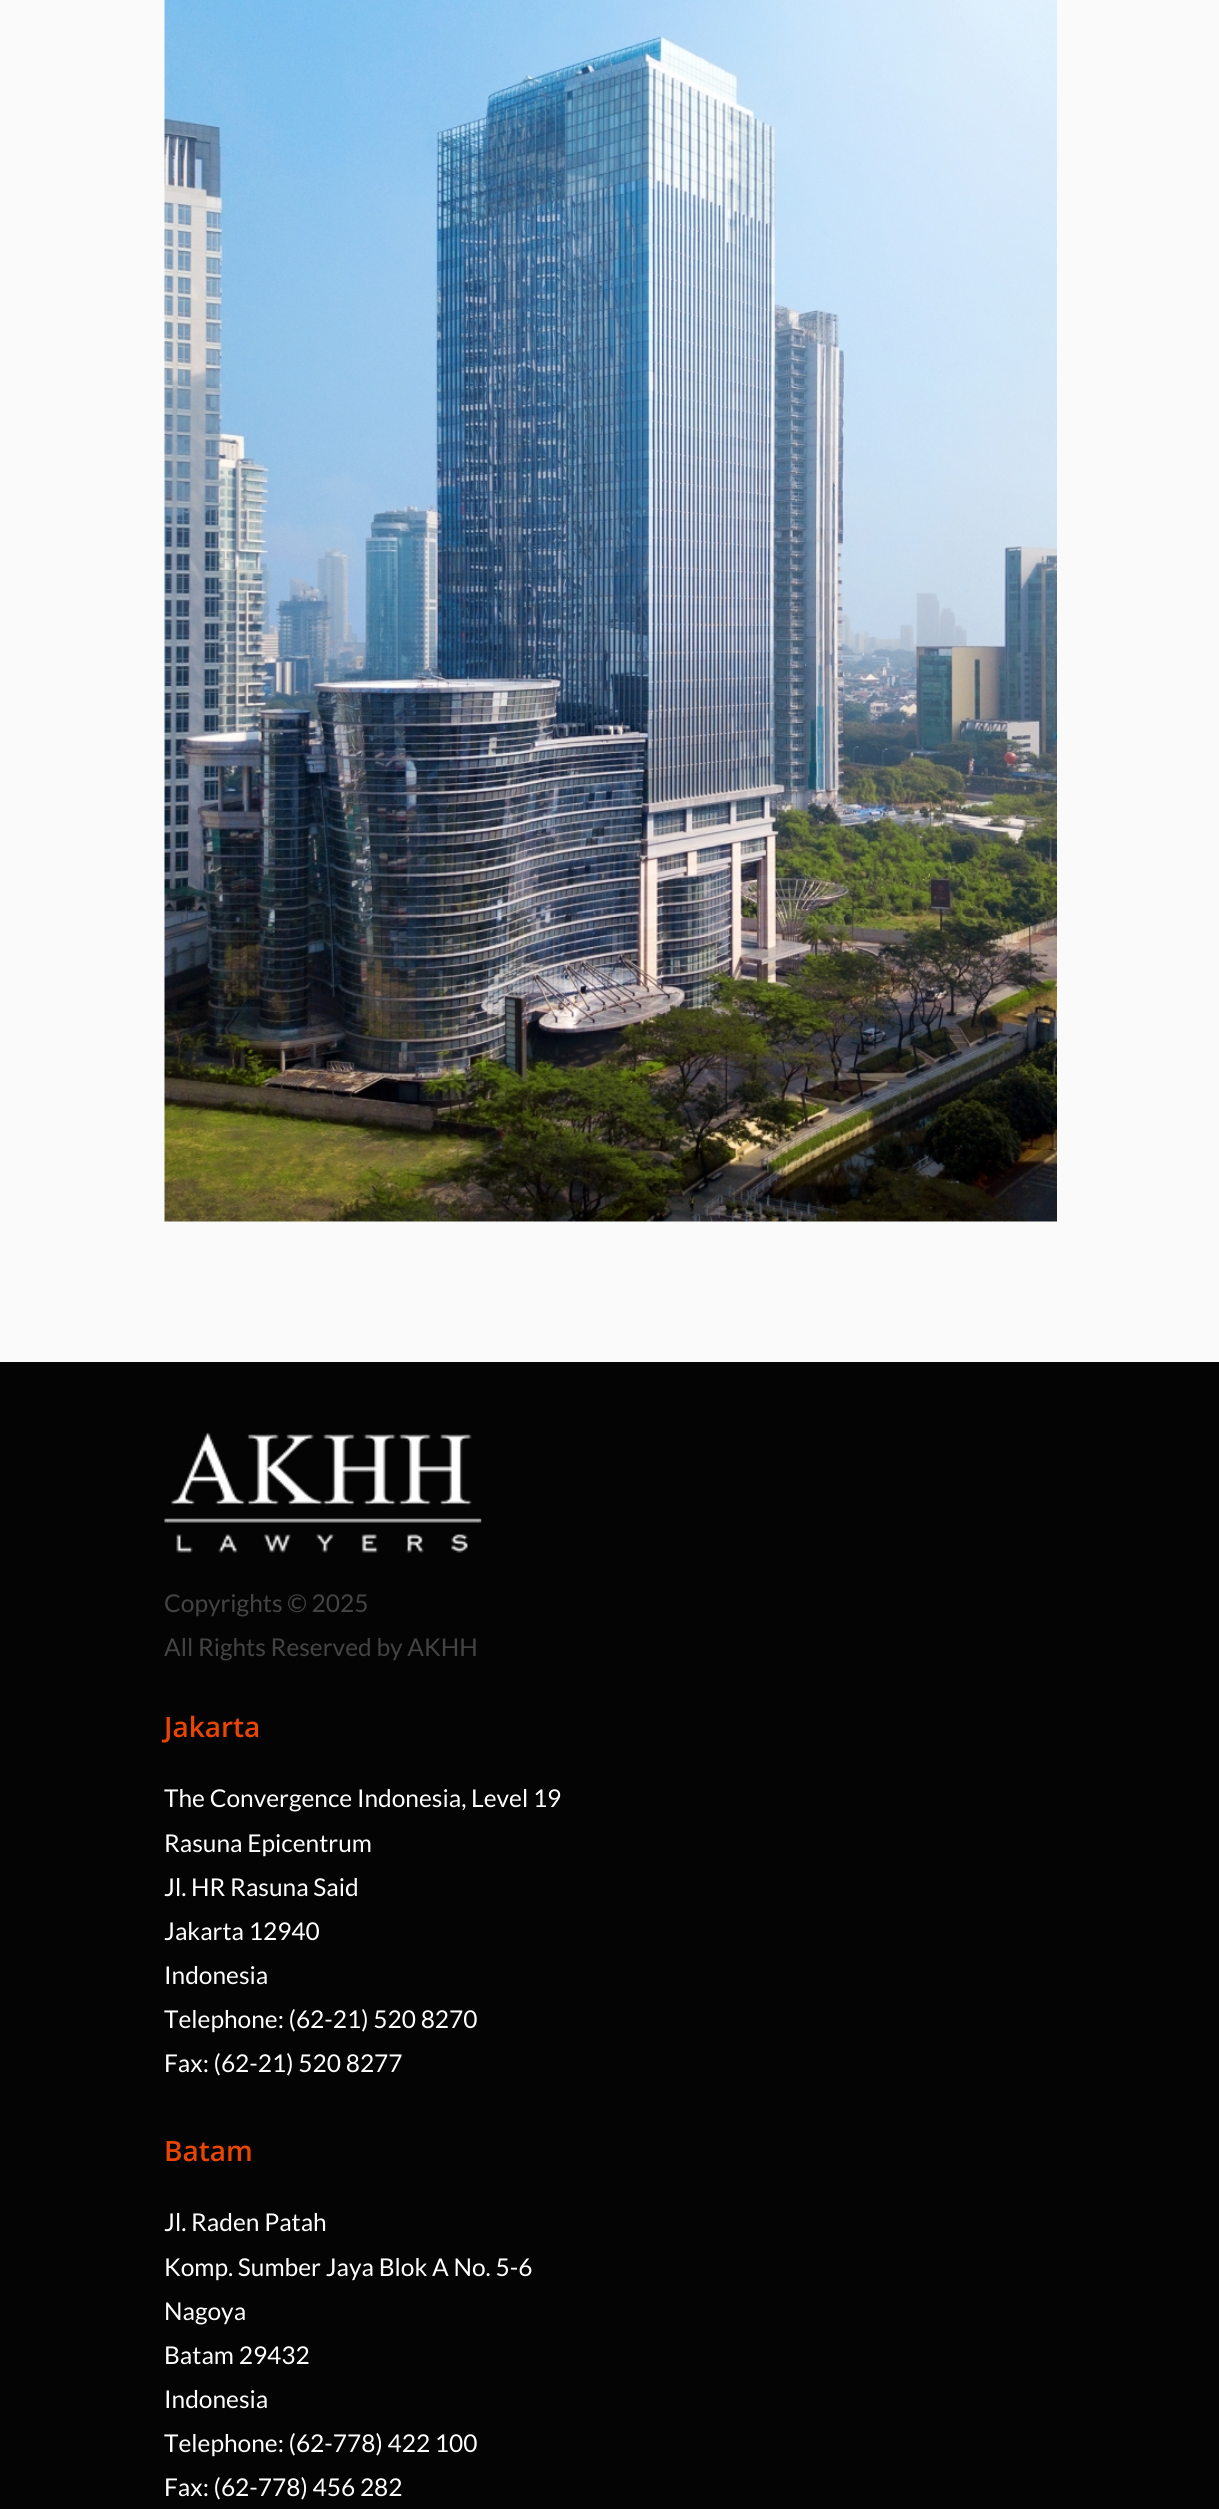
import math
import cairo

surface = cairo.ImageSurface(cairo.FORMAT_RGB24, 1219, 2509)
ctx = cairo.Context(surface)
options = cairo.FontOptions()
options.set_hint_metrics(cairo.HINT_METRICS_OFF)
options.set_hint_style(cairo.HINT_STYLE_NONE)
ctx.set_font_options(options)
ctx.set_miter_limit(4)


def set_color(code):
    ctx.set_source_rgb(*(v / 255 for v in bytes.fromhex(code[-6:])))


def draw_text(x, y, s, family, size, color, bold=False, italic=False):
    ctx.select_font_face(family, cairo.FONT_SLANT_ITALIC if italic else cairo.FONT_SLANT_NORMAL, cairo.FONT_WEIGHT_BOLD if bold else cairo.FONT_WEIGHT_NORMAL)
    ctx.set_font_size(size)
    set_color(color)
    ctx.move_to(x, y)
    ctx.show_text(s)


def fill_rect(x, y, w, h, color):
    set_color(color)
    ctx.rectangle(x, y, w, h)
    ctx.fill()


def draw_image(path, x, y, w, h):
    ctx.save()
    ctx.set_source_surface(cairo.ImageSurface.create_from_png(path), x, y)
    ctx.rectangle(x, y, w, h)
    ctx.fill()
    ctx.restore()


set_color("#040404")
ctx.paint()
fill_rect(0, 0, 1219, 1362, "#fafafa")
draw_image("assets/img1.png", 164, 0, 893, 1222)
draw_image("assets/img2.png", 164, 1432, 318, 121)
draw_text(164, 1612, "Copyrights © 2025", "Lato", 24.5, "#434343")
draw_text(164, 1656, "All Rights Reserved by AKHH", "Lato", 24.5, "#434343")
draw_text(164, 1737, "Jakarta", "Open Sans SemiBold", 28, "#ea4502")
draw_text(164, 1807, "The Convergence Indonesia, Level 19", "Lato", 24.5, "#ffffff")
draw_text(164, 1852, "Rasuna Epicentrum", "Lato", 24.5, "#ffffff")
draw_text(164, 1896, "Jl. HR Rasuna Said", "Lato", 24.5, "#ffffff")
draw_text(164, 1940, "Jakarta 12940", "Lato", 24.5, "#ffffff")
draw_text(164, 1984, "Indonesia", "Lato", 24.5, "#ffffff")
draw_text(164, 2028, "Telephone: (62-21) 520 8270", "Lato", 24.5, "#ffffff")
draw_text(164, 2072, "Fax: (62-21) 520 8277", "Lato", 24.5, "#ffffff")
draw_text(164, 2161, "Batam", "Open Sans SemiBold", 28, "#ea4502")
draw_text(164, 2231, "Jl. Raden Patah", "Lato", 24.5, "#ffffff")
draw_text(164, 2276, "Komp. Sumber Jaya Blok A No. 5-6", "Lato", 24.5, "#ffffff")
draw_text(164, 2320, "Nagoya", "Lato", 24.5, "#ffffff")
draw_text(164, 2364, "Batam 29432", "Lato", 24.5, "#ffffff")
draw_text(164, 2408, "Indonesia", "Lato", 24.5, "#ffffff")
draw_text(164, 2452, "Telephone: (62-778) 422 100", "Lato", 24.5, "#ffffff")
draw_text(164, 2496, "Fax: (62-778) 456 282", "Lato", 24.5, "#ffffff")
surface.write_to_png("output.png")
